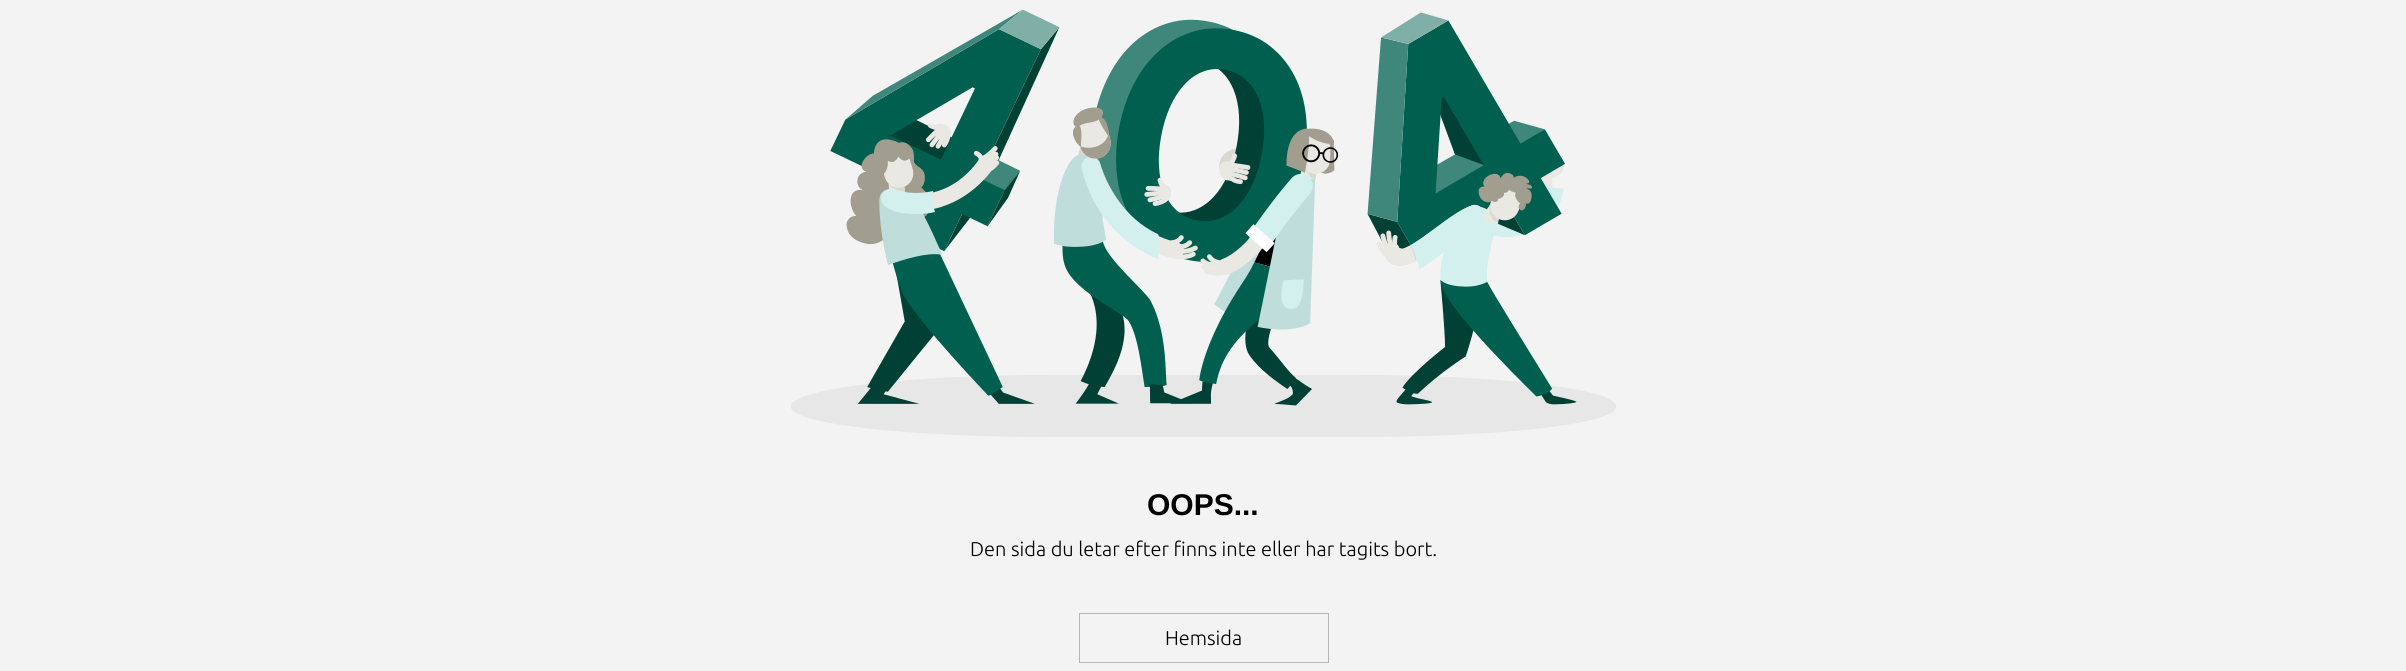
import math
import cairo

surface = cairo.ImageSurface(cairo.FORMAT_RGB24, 2406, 671)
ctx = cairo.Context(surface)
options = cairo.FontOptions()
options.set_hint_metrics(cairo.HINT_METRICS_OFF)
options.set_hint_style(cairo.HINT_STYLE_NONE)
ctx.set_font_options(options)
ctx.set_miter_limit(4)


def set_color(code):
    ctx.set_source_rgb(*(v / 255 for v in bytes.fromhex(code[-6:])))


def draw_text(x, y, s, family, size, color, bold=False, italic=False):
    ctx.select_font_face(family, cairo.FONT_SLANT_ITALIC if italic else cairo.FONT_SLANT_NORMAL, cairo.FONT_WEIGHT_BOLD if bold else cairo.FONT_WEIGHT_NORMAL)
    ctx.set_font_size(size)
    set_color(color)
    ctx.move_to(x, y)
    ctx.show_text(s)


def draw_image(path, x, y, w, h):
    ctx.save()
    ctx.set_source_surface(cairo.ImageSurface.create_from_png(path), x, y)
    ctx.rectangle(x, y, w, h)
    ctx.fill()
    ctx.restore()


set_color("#f3f3f3")
ctx.paint()
set_color("#e7e7e7")
ctx.new_path()
ctx.move_to(1358, 437)
ctx.line_to(1049, 437)
ctx.curve_to(907, 437, 791, 424, 791, 407)
ctx.line_to(791, 406)
ctx.curve_to(791, 389, 907, 375, 1049, 375)
ctx.line_to(1358, 375)
ctx.curve_to(1500, 375, 1616, 389, 1616, 406)
ctx.line_to(1616, 407)
ctx.curve_to(1616, 424, 1500, 437, 1358, 437)
ctx.close_path()
ctx.fill()
draw_image("assets/img1.png", 830, 9, 747, 397)
draw_text(1147, 515, "OOPS...", "Liberation Sans", 30, "#000000", bold=True)
draw_text(970, 556, "Den sida du letar efter finns inte eller har tagits bort.", "Ubuntu Light", 20, "#000000")
ctx.rectangle(1079.5, 613.5, 249, 49)
set_color("#b6b6b6")
ctx.set_line_width(1)
ctx.stroke()
draw_text(1165, 645, "Hemsida", "Ubuntu Light", 20, "#000000")
surface.write_to_png("output.png")
